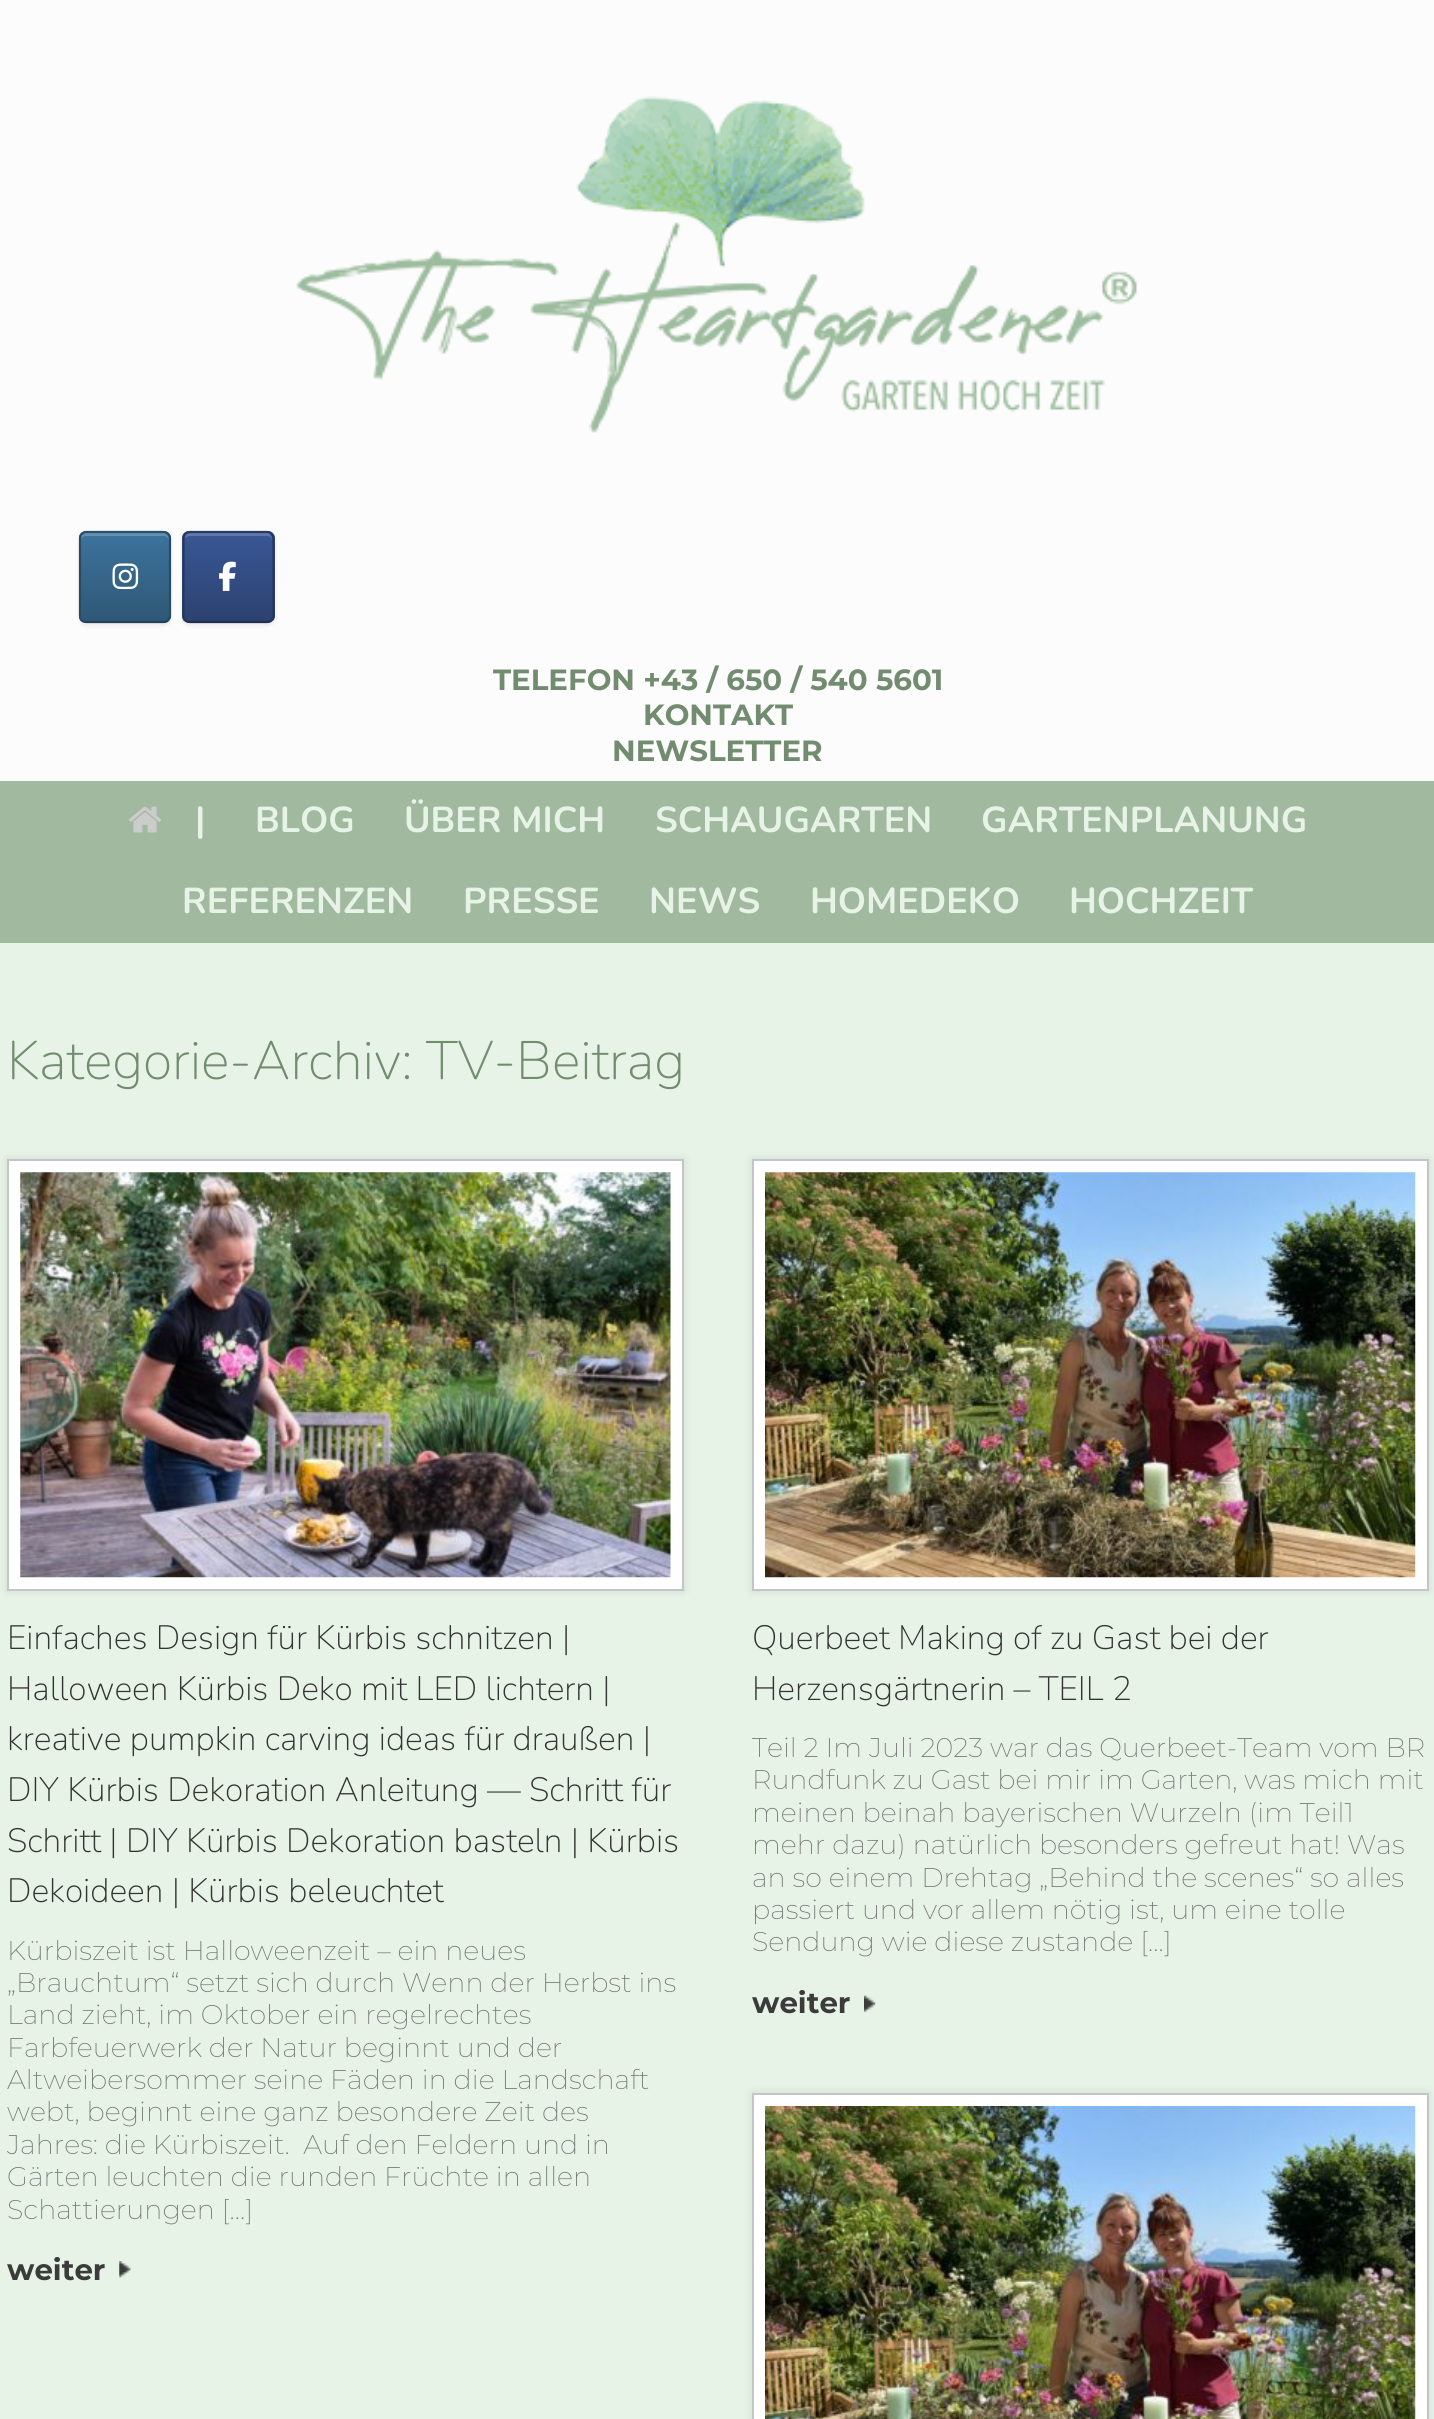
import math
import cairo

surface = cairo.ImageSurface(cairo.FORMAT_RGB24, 1434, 2419)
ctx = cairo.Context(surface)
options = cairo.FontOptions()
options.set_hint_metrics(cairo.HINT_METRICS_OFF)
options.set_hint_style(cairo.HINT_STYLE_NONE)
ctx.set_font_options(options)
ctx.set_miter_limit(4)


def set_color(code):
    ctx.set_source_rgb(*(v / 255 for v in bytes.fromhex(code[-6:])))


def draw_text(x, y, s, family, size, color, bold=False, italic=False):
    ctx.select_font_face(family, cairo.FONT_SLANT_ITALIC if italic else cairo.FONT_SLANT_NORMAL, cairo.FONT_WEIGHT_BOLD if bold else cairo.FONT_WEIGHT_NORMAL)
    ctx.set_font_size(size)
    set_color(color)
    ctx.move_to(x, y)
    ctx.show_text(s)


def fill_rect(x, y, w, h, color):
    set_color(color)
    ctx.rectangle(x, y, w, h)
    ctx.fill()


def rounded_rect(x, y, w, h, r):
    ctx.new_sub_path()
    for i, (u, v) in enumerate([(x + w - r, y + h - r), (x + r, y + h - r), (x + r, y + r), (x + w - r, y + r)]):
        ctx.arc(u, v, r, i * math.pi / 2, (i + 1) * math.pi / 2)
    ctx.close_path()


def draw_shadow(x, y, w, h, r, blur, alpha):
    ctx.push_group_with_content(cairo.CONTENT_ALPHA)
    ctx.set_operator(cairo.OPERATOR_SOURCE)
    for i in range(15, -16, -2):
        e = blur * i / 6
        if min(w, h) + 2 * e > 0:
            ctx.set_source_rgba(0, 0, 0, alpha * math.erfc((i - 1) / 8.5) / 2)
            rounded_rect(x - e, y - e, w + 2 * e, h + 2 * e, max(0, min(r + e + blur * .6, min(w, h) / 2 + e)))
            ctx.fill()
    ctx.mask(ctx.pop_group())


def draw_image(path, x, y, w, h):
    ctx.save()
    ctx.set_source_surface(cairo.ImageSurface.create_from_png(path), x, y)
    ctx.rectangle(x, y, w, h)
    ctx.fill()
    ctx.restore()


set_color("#fcfcfc")
ctx.paint()
draw_image("assets/img1.png", 296, 96, 841, 337)
set_color("#000000")
draw_shadow(79, 533, 92, 93, 7, 2, 0.07)
ctx.save()
rounded_rect(79, 531, 92, 92, 7)
ctx.clip()
gradient = cairo.LinearGradient(81, 533, 81, 446)
gradient.add_color_stop_rgba(0, 0.184, 0.345, 0.467, 1)
gradient.add_color_stop_rgba(1, 0.239, 0.451, 0.612, 1)
ctx.set_source(gradient)
ctx.rectangle(79, 531, 92, 2)
ctx.fill()
gradient = cairo.LinearGradient(81, 621, 81, 533)
gradient.add_color_stop_rgba(0, 0.184, 0.345, 0.467, 1)
gradient.add_color_stop_rgba(1, 0.239, 0.451, 0.612, 1)
ctx.set_source(gradient)
ctx.rectangle(79, 533, 92, 88)
ctx.fill()
ctx.restore()
set_color("#648faf")
ctx.new_path()
ctx.move_to(86, 536)
ctx.line_to(164, 536)
ctx.curve_to(166, 536, 169, 538, 169, 541)
ctx.curve_to(169, 530, 162, 533, 151, 533)
ctx.line_to(99, 533)
ctx.curve_to(88, 533, 81, 530, 81, 541)
ctx.curve_to(81, 538, 83, 536, 86, 536)
ctx.close_path()
ctx.fill()
ctx.new_path()
ctx.move_to(81.5, 534)
ctx.curve_to(83, 533, 84.5, 532, 86, 532)
ctx.line_to(163.5, 532)
ctx.curve_to(165.5, 532, 167, 533, 168, 534)
set_color("#2a506c")
ctx.set_line_width(2.2)
ctx.stroke()
ctx.new_path()
ctx.move_to(168, 534)
ctx.curve_to(169, 535, 170, 536.5, 170, 538.5)
ctx.line_to(170, 616)
ctx.curve_to(170, 617.5, 169, 619, 168, 620.5)
set_color("#274a65")
ctx.stroke()
ctx.new_path()
ctx.move_to(168, 620.5)
ctx.curve_to(167, 621.5, 165.5, 622, 163.5, 622)
ctx.line_to(86, 622)
ctx.curve_to(84.5, 622, 83, 621.5, 81.5, 620.5)
set_color("#23425a")
ctx.stroke()
ctx.new_path()
ctx.move_to(81.5, 620.5)
ctx.curve_to(80.5, 619, 80, 617.5, 80, 616)
ctx.line_to(80, 538.5)
ctx.curve_to(80, 536.5, 80.5, 535, 81.5, 534)
set_color("#274a65")
ctx.stroke()
draw_image("assets/img2.png", 112, 563, 27, 27)
set_color("#000000")
draw_shadow(182, 533, 93, 93, 7, 2, 0.07)
ctx.save()
rounded_rect(182, 531, 93, 92, 7)
ctx.clip()
gradient = cairo.LinearGradient(185, 533, 185, 446)
gradient.add_color_stop_rgba(0, 0.173, 0.259, 0.439, 1)
gradient.add_color_stop_rgba(1, 0.227, 0.341, 0.584, 1)
ctx.set_source(gradient)
ctx.rectangle(182, 531, 93, 2)
ctx.fill()
gradient = cairo.LinearGradient(185, 621, 185, 533)
gradient.add_color_stop_rgba(0, 0.173, 0.259, 0.439, 1)
gradient.add_color_stop_rgba(1, 0.227, 0.341, 0.584, 1)
ctx.set_source(gradient)
ctx.rectangle(182, 533, 93, 88)
ctx.fill()
ctx.restore()
ctx.set_source_rgba(1, 1, 1, 0.2)
ctx.new_path()
ctx.move_to(190, 536)
ctx.line_to(267, 536)
ctx.curve_to(270, 536, 272, 538, 272, 541)
ctx.curve_to(272, 530, 265, 533, 254, 533)
ctx.line_to(203, 533)
ctx.curve_to(199, 533, 185, 530, 185, 538)
ctx.curve_to(186, 537, 188, 536, 190, 536)
ctx.close_path()
ctx.fill()
ctx.new_path()
ctx.move_to(185, 534)
ctx.curve_to(186.5, 533, 188, 532, 189.5, 532)
ctx.line_to(267, 532)
ctx.curve_to(269, 532, 270.5, 533, 271.5, 534)
set_color("#273b65")
ctx.stroke()
ctx.new_path()
ctx.move_to(271.5, 534)
ctx.curve_to(272.5, 535, 273.5, 536.5, 273.5, 538.5)
ctx.line_to(273.5, 616)
ctx.curve_to(273.5, 617.5, 272.5, 619, 271.5, 620.5)
set_color("#25375e")
ctx.stroke()
ctx.new_path()
ctx.move_to(271.5, 620.5)
ctx.curve_to(270.5, 621.5, 269, 622, 267, 622)
ctx.line_to(189.5, 622)
ctx.curve_to(188, 622, 186.5, 621.5, 185, 620.5)
set_color("#203053")
ctx.stroke()
ctx.new_path()
ctx.move_to(185, 620.5)
ctx.curve_to(184, 619, 183.5, 617.5, 183.5, 616)
ctx.line_to(183.5, 538.5)
ctx.curve_to(183.5, 536.5, 184, 535, 185, 534)
set_color("#25375e")
ctx.stroke()
draw_image("assets/img3.png", 219, 561, 17, 30)
draw_text(493, 690, "TELEFON +43 / 650 / 540 5601", "Montserrat", 29.25, "#728c70", bold=True)
draw_text(643, 725, "KONTAKT", "Montserrat", 29.25, "#728c70", bold=True)
draw_text(612, 761, "NEWSLETTER", "Montserrat", 29.25, "#728c70", bold=True)
fill_rect(0, 781, 1434, 162, "#a1ba9f")
draw_image("assets/img4.png", 128, 806, 33, 27)
draw_text(195, 832, "|", "Nunito", 36, "#e6f3e6", bold=True)
draw_text(255, 832, "BLOG", "Nunito", 36, "#e6f3e6", bold=True)
draw_text(404, 832, "ÜBER MICH", "Nunito", 36, "#e6f3e6", bold=True)
draw_text(655, 832, "SCHAUGARTEN", "Nunito", 36, "#e6f3e6", bold=True)
draw_text(981, 832, "GARTENPLANUNG", "Nunito", 36, "#e6f3e6", bold=True)
draw_text(182, 913, "REFERENZEN", "Nunito", 36, "#e6f3e6", bold=True)
draw_text(463, 913, "PRESSE", "Nunito", 36, "#e6f3e6", bold=True)
draw_text(649, 913, "NEWS", "Nunito", 36, "#e6f3e6", bold=True)
draw_text(810, 913, "HOMEDEKO", "Nunito", 36, "#e6f3e6", bold=True)
draw_text(1069, 913, "HOCHZEIT", "Nunito", 36, "#e6f3e6", bold=True)
fill_rect(0, 943, 1434, 1476, "#e6f3e6")
draw_text(7, 1079, "Kategorie-Archiv: TV-Beitrag", "Nunito ExtraLight", 54, "#728c70")
set_color("#000000")
draw_shadow(7, 1159, 677, 432, 0, 4.5, 0.1)
set_color("#ffffff")
ctx.rectangle(8, 1160, 675, 430)
ctx.fill_preserve()
set_color("#c2c5ca")
ctx.set_line_width(2)
ctx.stroke()
draw_image("assets/img5.png", 20, 1172, 651, 406)
draw_text(7, 1649, "Einfaches Design für Kürbis schnitzen |", "Nunito ExtraLight", 33.75, "#333333")
draw_text(7, 1700, "Halloween Kürbis Deko mit LED lichtern |", "Nunito ExtraLight", 33.75, "#333333")
draw_text(7, 1750, "kreative pumpkin carving ideas für draußen |", "Nunito ExtraLight", 33.75, "#333333")
draw_text(7, 1801, "DIY Kürbis Dekoration Anleitung — Schritt für", "Nunito ExtraLight", 33.75, "#333333")
draw_text(7, 1852, "Schritt | DIY Kürbis Dekoration basteln | Kürbis", "Nunito ExtraLight", 33.75, "#333333")
draw_text(7, 1902, "Dekoideen | Kürbis beleuchtet", "Nunito ExtraLight", 33.75, "#333333")
draw_text(7, 1960, "Kürbiszeit ist Halloweenzeit – ein neues", "Montserrat ExtraLight", 27, "#777777")
draw_text(7, 1992, "„Brauchtum“ setzt sich durch Wenn der Herbst ins", "Montserrat ExtraLight", 27, "#777777")
draw_text(7, 2024, "Land zieht, im Oktober ein regelrechtes", "Montserrat ExtraLight", 27, "#777777")
draw_text(7, 2057, "Farbfeuerwerk der Natur beginnt und der", "Montserrat ExtraLight", 27, "#777777")
draw_text(7, 2089, "Altweibersommer seine Fäden in die Landschaft", "Montserrat ExtraLight", 27, "#777777")
draw_text(7, 2121, "webt, beginnt eine ganz besondere Zeit des", "Montserrat ExtraLight", 27, "#777777")
draw_text(7, 2154, "Jahres: die Kürbiszeit.  Auf den Feldern und in", "Montserrat ExtraLight", 27, "#777777")
draw_text(7, 2186, "Gärten leuchten die runden Früchte in allen", "Montserrat ExtraLight", 27, "#777777")
draw_text(7, 2219, "Schattierungen […]", "Montserrat ExtraLight", 27, "#777777")
draw_text(7, 2280, "weiter", "Montserrat", 29.25, "#3b3b3b", bold=True)
draw_image("assets/img6.png", 119, 2261, 12, 17)
set_color("#000000")
draw_shadow(752, 1159, 677, 432, 0, 4.5, 0.1)
set_color("#ffffff")
ctx.rectangle(753, 1160, 675, 430)
ctx.fill_preserve()
set_color("#c2c5ca")
ctx.stroke()
draw_image("assets/img7.png", 765, 1172, 651, 406)
draw_text(752, 1649, "Querbeet Making of zu Gast bei der", "Nunito ExtraLight", 33.75, "#333333")
draw_text(752, 1700, "Herzensgärtnerin – TEIL 2", "Nunito ExtraLight", 33.75, "#333333")
draw_text(752, 1757, "Teil 2 Im Juli 2023 war das Querbeet-Team vom BR", "Montserrat ExtraLight", 27, "#777777")
draw_text(752, 1789, "Rundfunk zu Gast bei mir im Garten, was mich mit", "Montserrat ExtraLight", 27, "#777777")
draw_text(752, 1822, "meinen beinah bayerischen Wurzeln (im Teil1", "Montserrat ExtraLight", 27, "#777777")
draw_text(752, 1854, "mehr dazu) natürlich besonders gefreut hat! Was", "Montserrat ExtraLight", 27, "#777777")
draw_text(752, 1887, "an so einem Drehtag „Behind the scenes“ so alles", "Montserrat ExtraLight", 27, "#777777")
draw_text(752, 1919, "passiert und vor allem nötig ist, um eine tolle", "Montserrat ExtraLight", 27, "#777777")
draw_text(752, 1951, "Sendung wie diese zustande […]", "Montserrat ExtraLight", 27, "#777777")
draw_text(752, 2013, "weiter", "Montserrat", 29.25, "#3b3b3b", bold=True)
draw_image("assets/img8.png", 864, 1995, 12, 18)
set_color("#000000")
draw_shadow(752, 2093, 677, 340, 0, 4.5, 0.1)
set_color("#ffffff")
ctx.rectangle(753, 2094, 675, 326)
ctx.fill_preserve()
set_color("#c2c5ca")
ctx.stroke()
draw_image("assets/img9.png", 765, 2106, 651, 313)
surface.write_to_png("output.png")
